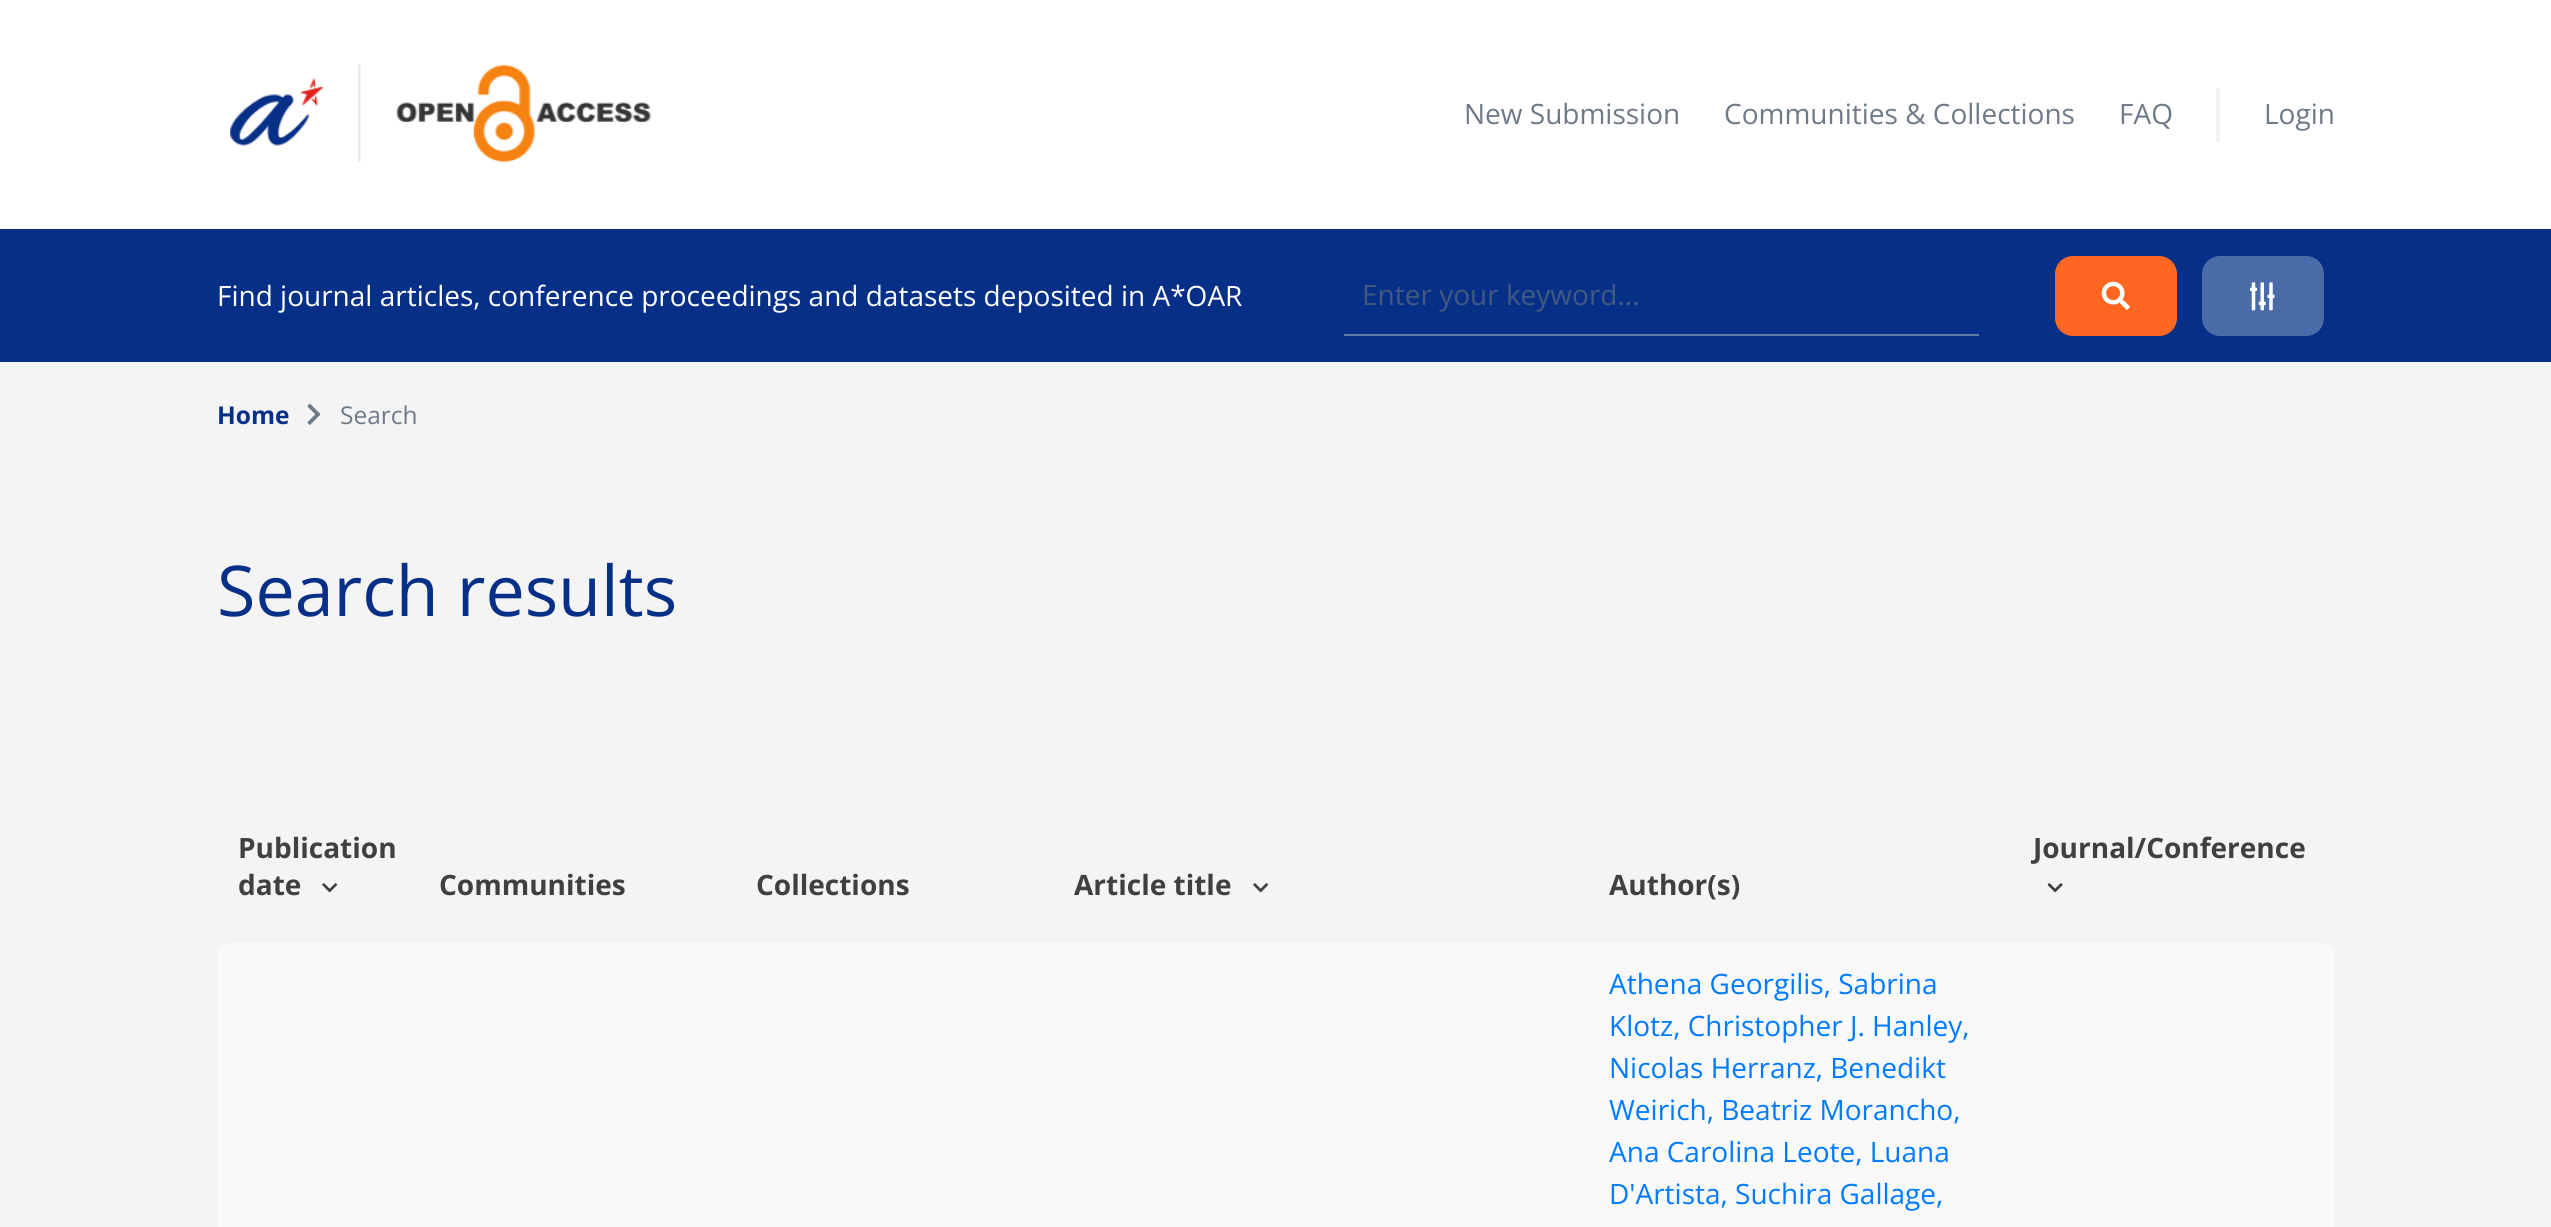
import math
import cairo

surface = cairo.ImageSurface(cairo.FORMAT_RGB24, 2551, 1227)
ctx = cairo.Context(surface)
options = cairo.FontOptions()
options.set_hint_metrics(cairo.HINT_METRICS_OFF)
options.set_hint_style(cairo.HINT_STYLE_NONE)
ctx.set_font_options(options)
ctx.set_miter_limit(4)


def set_color(code):
    ctx.set_source_rgb(*(v / 255 for v in bytes.fromhex(code[-6:])))


def draw_text(x, y, s, family, size, color, bold=False, italic=False):
    ctx.select_font_face(family, cairo.FONT_SLANT_ITALIC if italic else cairo.FONT_SLANT_NORMAL, cairo.FONT_WEIGHT_BOLD if bold else cairo.FONT_WEIGHT_NORMAL)
    ctx.set_font_size(size)
    set_color(color)
    ctx.move_to(x, y)
    ctx.show_text(s)


def fill_rect(x, y, w, h, color):
    set_color(color)
    ctx.rectangle(x, y, w, h)
    ctx.fill()


def rounded_rect(x, y, w, h, r):
    ctx.new_sub_path()
    for i, (u, v) in enumerate([(x + w - r, y + h - r), (x + r, y + h - r), (x + r, y + r), (x + w - r, y + r)]):
        ctx.arc(u, v, r, i * math.pi / 2, (i + 1) * math.pi / 2)
    ctx.close_path()


def draw_image(path, x, y, w, h):
    ctx.save()
    ctx.set_source_surface(cairo.ImageSurface.create_from_png(path), x, y)
    ctx.rectangle(x, y, w, h)
    ctx.fill()
    ctx.restore()


set_color("#f4f4f4")
ctx.paint()
fill_rect(0, 0, 2551, 229, "#ffffff")
draw_image("assets/img1.png", 229, 64, 423, 99)
draw_text(1464, 124, "New Submission", "Open Sans", 28, "#6f7a89")
draw_text(1724, 124, "Communities & Collections", "Open Sans", 28, "#6f7a89")
draw_text(2119, 124, "FAQ", "Open Sans", 28, "#6f7a89")
fill_rect(2216, 88, 4, 54, "#f2f2f2")
draw_text(2264, 124, "Login", "Open Sans", 28, "#6f7a89")
fill_rect(0, 229, 2551, 133, "#062f87")
draw_text(217, 306, "Find journal articles, conference proceedings and datasets deposited in A*OAR", "Open Sans", 28, "#ffffff")
fill_rect(1344, 334, 635, 2, "#637dad")
draw_text(1362, 305, "Enter your keyword...", "Open Sans", 28, "#435981")
set_color("#ff6720")
rounded_rect(2055, 256, 122, 80, 18)
ctx.fill()
draw_image("assets/img2.png", 2101, 281, 29, 29)
set_color("#496ba8")
rounded_rect(2202, 256, 122, 80, 18)
ctx.fill()
draw_image("assets/img3.png", 2250, 282, 25, 29)
draw_text(217, 424, "Home", "Open Sans", 24.5, "#062f87", bold=True)
draw_image("assets/img4.png", 307, 403, 14, 22)
draw_text(340, 424, "Search", "Open Sans", 24.5, "#6f7a89")
draw_text(217, 616, "Search results", "Open Sans", 70, "#062f87")
draw_text(238, 858, "Publication", "Open Sans", 28, "#404040", bold=True)
draw_text(238, 895, "date", "Open Sans", 28, "#404040", bold=True)
draw_image("assets/img5.png", 322, 883, 16, 10)
draw_text(2033, 858, "Journal/Conference", "Open Sans", 28, "#404040", bold=True)
draw_image("assets/img6.png", 2047, 883, 16, 10)
draw_text(439, 895, "Communities", "Open Sans", 28, "#404040", bold=True)
draw_text(756, 895, "Collections", "Open Sans", 28, "#404040", bold=True)
draw_text(1074, 895, "Article title", "Open Sans", 28, "#404040", bold=True)
draw_image("assets/img5.png", 1253, 883, 16, 10)
draw_text(1609, 895, "Author(s)", "Open Sans", 28, "#404040", bold=True)
set_color("#f9f9f9")
rounded_rect(217, 942, 2118, 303, 18)
ctx.fill()
draw_text(1609, 994, "Athena Georgilis, Sabrina", "Open Sans", 28, "#007bff")
draw_text(1609, 1036, "Klotz, Christopher J. Hanley,", "Open Sans", 28, "#007bff")
draw_text(1609, 1078, "Nicolas Herranz, Benedikt", "Open Sans", 28, "#007bff")
draw_text(1609, 1120, "Weirich, Beatriz Morancho,", "Open Sans", 28, "#007bff")
draw_text(1609, 1162, "Ana Carolina Leote, Luana", "Open Sans", 28, "#007bff")
draw_text(1609, 1204, "D'Artista, Suchira Gallage,", "Open Sans", 28, "#007bff")
surface.write_to_png("output.png")
